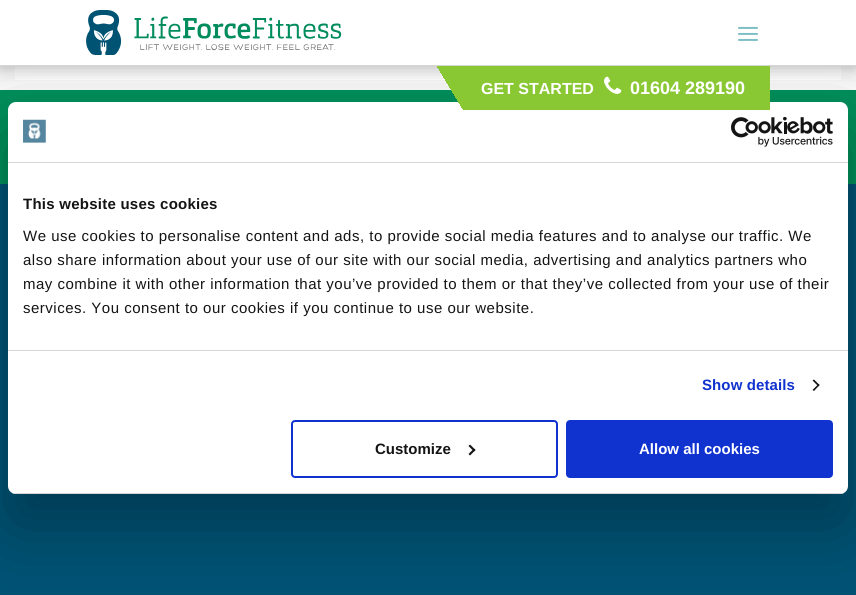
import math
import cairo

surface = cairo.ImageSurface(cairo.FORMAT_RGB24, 856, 595)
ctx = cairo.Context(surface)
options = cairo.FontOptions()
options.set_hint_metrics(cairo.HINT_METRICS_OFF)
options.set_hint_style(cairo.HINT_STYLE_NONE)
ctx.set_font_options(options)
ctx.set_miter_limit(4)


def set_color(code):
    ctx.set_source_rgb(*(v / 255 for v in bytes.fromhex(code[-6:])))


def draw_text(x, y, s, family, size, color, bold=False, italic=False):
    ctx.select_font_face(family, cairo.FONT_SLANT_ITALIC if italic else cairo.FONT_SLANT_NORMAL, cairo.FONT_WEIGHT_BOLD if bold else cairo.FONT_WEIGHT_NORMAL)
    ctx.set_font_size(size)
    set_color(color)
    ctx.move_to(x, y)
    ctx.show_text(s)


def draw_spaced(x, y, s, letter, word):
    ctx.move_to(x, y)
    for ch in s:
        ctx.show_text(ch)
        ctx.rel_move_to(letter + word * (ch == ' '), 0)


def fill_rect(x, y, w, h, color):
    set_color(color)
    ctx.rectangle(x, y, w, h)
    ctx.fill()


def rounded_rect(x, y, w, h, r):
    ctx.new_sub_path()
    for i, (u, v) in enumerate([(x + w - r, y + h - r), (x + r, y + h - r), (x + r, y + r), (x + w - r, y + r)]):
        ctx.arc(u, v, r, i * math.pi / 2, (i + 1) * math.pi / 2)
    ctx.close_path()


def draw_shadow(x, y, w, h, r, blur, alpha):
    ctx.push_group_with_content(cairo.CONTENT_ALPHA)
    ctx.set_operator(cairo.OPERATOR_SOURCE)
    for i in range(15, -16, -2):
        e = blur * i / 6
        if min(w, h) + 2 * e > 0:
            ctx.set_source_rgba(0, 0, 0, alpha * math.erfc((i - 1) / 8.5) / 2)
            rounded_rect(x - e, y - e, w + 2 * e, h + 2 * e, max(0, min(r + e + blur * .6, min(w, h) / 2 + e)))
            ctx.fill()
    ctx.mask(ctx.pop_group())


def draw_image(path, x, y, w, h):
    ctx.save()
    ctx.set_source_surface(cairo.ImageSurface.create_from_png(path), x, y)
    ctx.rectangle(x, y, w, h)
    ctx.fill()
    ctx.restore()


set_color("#f8f8f8")
ctx.paint()
fill_rect(15, 66, 826, 14, "#ffffff")
fill_rect(0, 90, 856, 94, "#008f5a")
set_color("#000000")
draw_shadow(0, 2, 856, 66, 0, 9, 0.3)
fill_rect(0, 184, 856, 411, "#005274")
set_color("#000000")
draw_shadow(8, 134, 840, 392, 8, 34, 0.3)
fill_rect(0, 0, 856, 65, "#ffffff")
fill_rect(0, 65, 856, 1, "#d6d6d6")
draw_image("assets/img1.png", 86, 10, 256, 45)
draw_image("assets/img2.png", 738, 26, 20, 15)
set_color("#ffffff")
rounded_rect(8, 102, 840, 392, 8)
ctx.fill()
gradient = cairo.LinearGradient(462, 170, 734, 6.2)
gradient.add_color_stop_rgba(0.1, 0.537, 0.784, 0.196, 0)
gradient.add_color_stop_rgba(0.1, 0.537, 0.784, 0.196, 1)
ctx.set_source(gradient)
ctx.rectangle(437, 66, 333, 44)
ctx.fill()
draw_text(481, 94, "GET STARTED", "Liberation Sans", 16, "#ffffff", bold=True)
draw_image("assets/img3.png", 604, 76, 18, 18)
draw_text(630, 94, "01604 289190", "Liberation Sans", 18, "#ffffff", bold=True)
fill_rect(8, 162, 840, 1, "#d6d6d6")
draw_image("assets/img4.png", 23, 119, 23, 24)
draw_image("assets/img5.png", 731, 117, 102, 30)
fill_rect(8, 350, 840, 1, "#d6d6d6")
ctx.set_font_size(15)
set_color("#141414")
draw_spaced(23, 209, "This website uses cookies", 0.25, 0)
ctx.select_font_face("Liberation Sans")
draw_spaced(23, 241, "We use cookies to personalise content and ads, to provide social media features and to analyse our traffic. We", 0.5, 0)
draw_spaced(23, 265, "also share information about your use of our site with our social media, advertising and analytics partners who", 0.5, 0)
draw_spaced(23, 289, "may combine it with other information that you’ve provided to them or that they’ve collected from your use of their", 0.5, 0)
draw_spaced(23, 313, "services. You consent to our cookies if you continue to use our website.", 0.5, 0)
ctx.select_font_face("Liberation Sans", cairo.FONT_SLANT_NORMAL, cairo.FONT_WEIGHT_BOLD)
set_color("#1032cf")
draw_spaced(702, 390, "Show details", 0.1, 0)
set_color("#141414")
ctx.new_path()
ctx.move_to(814, 379.5)
ctx.line_to(819.5, 385)
ctx.line_to(818.5, 386.5)
ctx.line_to(812.5, 380.5)
ctx.close_path()
ctx.fill()
ctx.new_path()
ctx.move_to(818.5, 384)
ctx.line_to(819.5, 385)
ctx.line_to(814, 391)
ctx.line_to(812.5, 390)
ctx.close_path()
ctx.fill()
ctx.save()
rounded_rect(8, 102, 840, 392, 8)
ctx.clip()
fill_rect(8, 493, 840, 1, "#d6d6d6")
ctx.restore()
rounded_rect(292, 421, 265, 56, 3)
set_color("#1032cf")
ctx.stroke()
draw_text(375, 454, "Customize", "Liberation Sans", 15, "#141414", bold=True)
ctx.new_path()
ctx.move_to(470, 444.5)
ctx.line_to(475.5, 450)
ctx.line_to(474, 451.5)
ctx.line_to(468.5, 446)
ctx.close_path()
ctx.fill()
ctx.new_path()
ctx.move_to(474, 448.5)
ctx.line_to(475.5, 450)
ctx.line_to(470, 455.5)
ctx.line_to(468.5, 454)
ctx.close_path()
ctx.fill()
set_color("#1032cf")
rounded_rect(567, 421, 265, 56, 3)
ctx.fill_preserve()
ctx.stroke()
draw_text(639, 454, "Allow all cookies", "Liberation Sans", 15, "#ffffff", bold=True)
surface.write_to_png("output.png")
